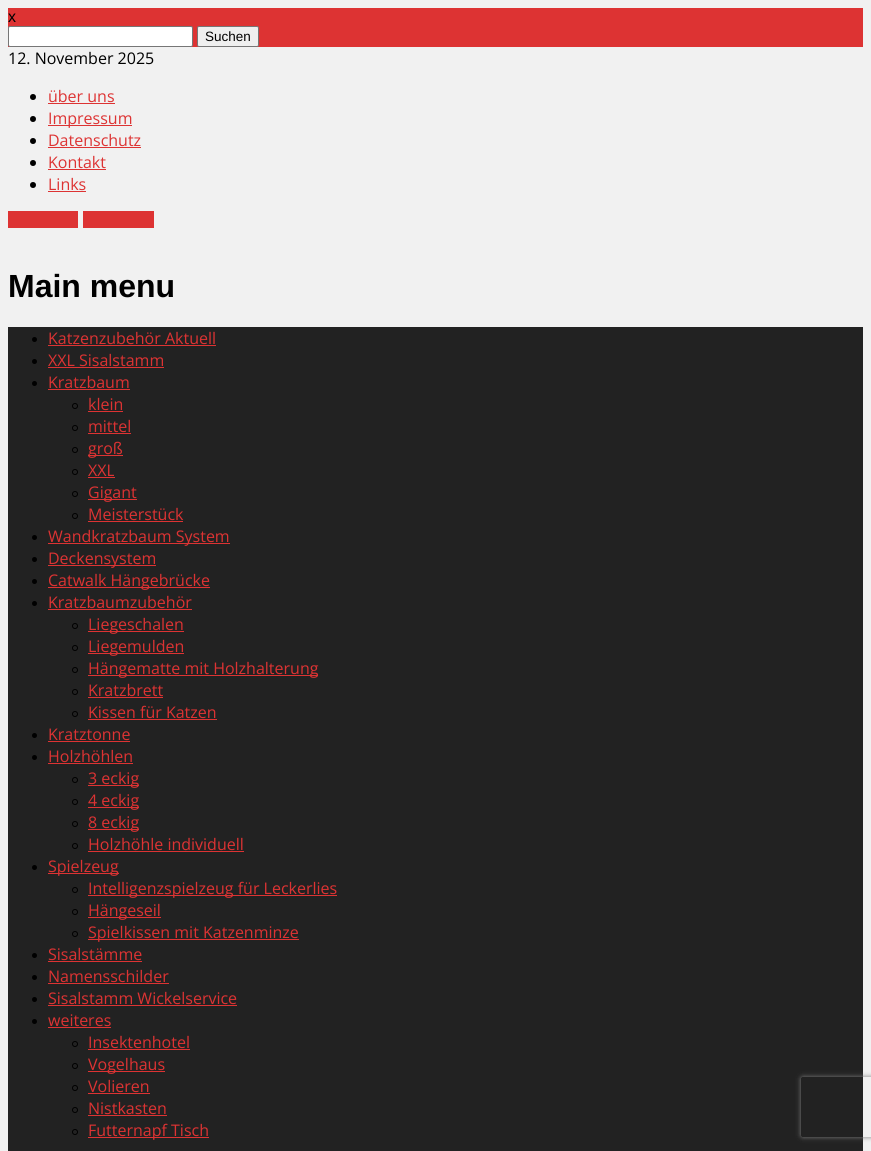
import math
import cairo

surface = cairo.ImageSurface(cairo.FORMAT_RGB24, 871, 1151)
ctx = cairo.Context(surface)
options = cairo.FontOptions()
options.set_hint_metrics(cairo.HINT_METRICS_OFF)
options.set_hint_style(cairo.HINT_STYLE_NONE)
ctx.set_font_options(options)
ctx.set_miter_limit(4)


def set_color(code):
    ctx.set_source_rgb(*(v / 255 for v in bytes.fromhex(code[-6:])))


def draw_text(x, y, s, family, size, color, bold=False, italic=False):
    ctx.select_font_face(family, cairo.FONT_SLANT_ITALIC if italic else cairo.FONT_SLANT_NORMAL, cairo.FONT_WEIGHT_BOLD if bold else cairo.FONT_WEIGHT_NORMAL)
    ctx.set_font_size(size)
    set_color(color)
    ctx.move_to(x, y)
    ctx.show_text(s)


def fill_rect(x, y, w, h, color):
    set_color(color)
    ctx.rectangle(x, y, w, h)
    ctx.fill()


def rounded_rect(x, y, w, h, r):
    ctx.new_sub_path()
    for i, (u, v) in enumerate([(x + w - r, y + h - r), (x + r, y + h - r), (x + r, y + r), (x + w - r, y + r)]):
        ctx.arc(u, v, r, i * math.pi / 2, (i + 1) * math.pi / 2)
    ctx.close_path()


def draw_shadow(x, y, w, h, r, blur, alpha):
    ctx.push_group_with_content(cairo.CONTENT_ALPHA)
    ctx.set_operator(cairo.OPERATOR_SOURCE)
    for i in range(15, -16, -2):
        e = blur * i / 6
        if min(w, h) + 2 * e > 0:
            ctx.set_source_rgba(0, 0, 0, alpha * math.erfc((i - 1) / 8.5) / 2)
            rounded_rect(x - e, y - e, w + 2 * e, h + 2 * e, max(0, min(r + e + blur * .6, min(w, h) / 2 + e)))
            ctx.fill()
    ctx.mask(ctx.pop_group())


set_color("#f1f1f1")
ctx.paint()
fill_rect(8, 8, 855, 39, "#dd3333")
draw_text(8, 22, "x", "Liberation Sans", 16, "#000000")
set_color("#ffffff")
rounded_rect(8.5, 26.5, 184, 20, 1.5)
ctx.fill_preserve()
set_color("#767676")
ctx.set_line_width(1)
ctx.stroke()
set_color("#efefef")
rounded_rect(197.5, 26.5, 61, 20, 1.5)
ctx.fill_preserve()
set_color("#767676")
ctx.stroke()
draw_text(205, 41, "Suchen", "Liberation Sans", 13.5, "#000000")
draw_text(8, 64, "12. November 2025", "Open Sans", 16, "#000000")
ctx.new_path()
ctx.arc(33, 97, 3, 0, 2 * math.pi)
ctx.fill()
draw_text(48, 102, "über uns", "Open Sans", 16, "#dd3333")
fill_rect(48, 103, 67, 1, "#dd3333")
set_color("#000000")
ctx.new_path()
ctx.arc(33, 119, 3, 0, 2 * math.pi)
ctx.fill()
fill_rect(48, 125, 84, 1, "#dd3333")
draw_text(48, 124, "Impressum", "Open Sans", 16, "#dd3333")
set_color("#000000")
ctx.new_path()
ctx.arc(33, 141, 3, 0, 2 * math.pi)
ctx.fill()
draw_text(48, 146, "Datenschutz", "Open Sans", 16, "#dd3333")
fill_rect(48, 147, 93, 1, "#dd3333")
set_color("#000000")
ctx.new_path()
ctx.arc(33, 163, 3, 0, 2 * math.pi)
ctx.fill()
draw_text(48, 168, "Kontakt", "Open Sans", 16, "#dd3333")
fill_rect(48, 169, 58, 1, "#dd3333")
set_color("#000000")
ctx.new_path()
ctx.arc(33, 185, 3, 0, 2 * math.pi)
ctx.fill()
draw_text(48, 190, "Links", "Open Sans", 16, "#dd3333")
fill_rect(48, 191, 38, 1, "#dd3333")
fill_rect(8, 211, 70, 17, "#dd3333")
fill_rect(83, 211, 71, 17, "#dd3333")
draw_text(8, 297, "Main menu", "Liberation Sans", 32, "#000000", bold=True)
fill_rect(8, 327, 855, 824, "#222222")
set_color("#000000")
ctx.new_path()
ctx.arc(34.5, 339.5, 2.5, 0, 2 * math.pi)
ctx.fill()
draw_text(48, 344, "Katzenzubehör Aktuell", "Open Sans", 16, "#dd3333")
fill_rect(48, 345, 168, 1, "#dd3333")
set_color("#000000")
ctx.new_path()
ctx.arc(34.5, 361.5, 2.5, 0, 2 * math.pi)
ctx.fill()
draw_text(48, 366, "XXL Sisalstamm", "Open Sans", 16, "#dd3333")
fill_rect(48, 367, 116, 1, "#dd3333")
set_color("#000000")
ctx.new_path()
ctx.arc(34.5, 383.5, 2.5, 0, 2 * math.pi)
ctx.fill()
draw_text(48, 388, "Kratzbaum", "Open Sans", 16, "#dd3333")
fill_rect(48, 389, 82, 1, "#dd3333")
ctx.new_path()
ctx.arc(75, 406, 2.5, 0, 2 * math.pi)
set_color("#000000")
ctx.stroke()
draw_text(88, 410, "klein", "Open Sans", 16, "#dd3333")
fill_rect(88, 411, 35, 1, "#dd3333")
ctx.new_path()
ctx.arc(75, 428, 2.5, 0, 2 * math.pi)
set_color("#000000")
ctx.stroke()
draw_text(88, 432, "mittel", "Open Sans", 16, "#dd3333")
fill_rect(88, 433, 43, 1, "#dd3333")
ctx.new_path()
ctx.arc(75, 450, 2.5, 0, 2 * math.pi)
set_color("#000000")
ctx.stroke()
fill_rect(88, 455, 35, 1, "#dd3333")
draw_text(88, 454, "groß", "Open Sans", 16, "#dd3333")
ctx.new_path()
ctx.arc(75, 472, 2.5, 0, 2 * math.pi)
set_color("#000000")
ctx.stroke()
draw_text(88, 476, "XXL", "Open Sans", 16, "#dd3333")
fill_rect(88, 477, 27, 1, "#dd3333")
ctx.new_path()
ctx.arc(75, 494, 2.5, 0, 2 * math.pi)
set_color("#000000")
ctx.stroke()
fill_rect(88, 499, 49, 1, "#dd3333")
draw_text(88, 498, "Gigant", "Open Sans", 16, "#dd3333")
ctx.new_path()
ctx.arc(75, 516, 2.5, 0, 2 * math.pi)
set_color("#000000")
ctx.stroke()
draw_text(88, 520, "Meisterstück", "Open Sans", 16, "#dd3333")
fill_rect(88, 521, 95, 1, "#dd3333")
set_color("#000000")
ctx.new_path()
ctx.arc(34.5, 537.5, 2.5, 0, 2 * math.pi)
ctx.fill()
fill_rect(48, 543, 182, 1, "#dd3333")
draw_text(48, 542, "Wandkratzbaum System", "Open Sans", 16, "#dd3333")
set_color("#000000")
ctx.new_path()
ctx.arc(34.5, 559.5, 2.5, 0, 2 * math.pi)
ctx.fill()
fill_rect(48, 565, 108, 1, "#dd3333")
draw_text(48, 564, "Deckensystem", "Open Sans", 16, "#dd3333")
set_color("#000000")
ctx.new_path()
ctx.arc(34.5, 581.5, 2.5, 0, 2 * math.pi)
ctx.fill()
fill_rect(48, 587, 162, 1, "#dd3333")
draw_text(48, 586, "Catwalk Hängebrücke", "Open Sans", 16, "#dd3333")
set_color("#000000")
ctx.new_path()
ctx.arc(34.5, 603.5, 2.5, 0, 2 * math.pi)
ctx.fill()
draw_text(48, 608, "Kratzbaumzubehör", "Open Sans", 16, "#dd3333")
fill_rect(48, 609, 144, 1, "#dd3333")
ctx.new_path()
ctx.arc(75, 626, 2.5, 0, 2 * math.pi)
set_color("#000000")
ctx.stroke()
fill_rect(88, 631, 96, 1, "#dd3333")
draw_text(88, 630, "Liegeschalen", "Open Sans", 16, "#dd3333")
ctx.new_path()
ctx.arc(75, 648, 2.5, 0, 2 * math.pi)
set_color("#000000")
ctx.stroke()
fill_rect(88, 653, 96, 1, "#dd3333")
draw_text(88, 652, "Liegemulden", "Open Sans", 16, "#dd3333")
ctx.new_path()
ctx.arc(75, 670, 2.5, 0, 2 * math.pi)
set_color("#000000")
ctx.stroke()
fill_rect(88, 675, 230, 1, "#dd3333")
draw_text(88, 674, "Hängematte mit Holzhalterung", "Open Sans", 16, "#dd3333")
ctx.new_path()
ctx.arc(75, 692, 2.5, 0, 2 * math.pi)
set_color("#000000")
ctx.stroke()
draw_text(88, 696, "Kratzbrett", "Open Sans", 16, "#dd3333")
fill_rect(88, 697, 75, 1, "#dd3333")
ctx.new_path()
ctx.arc(75, 714, 2.5, 0, 2 * math.pi)
set_color("#000000")
ctx.stroke()
draw_text(88, 718, "Kissen für Katzen", "Open Sans", 16, "#dd3333")
fill_rect(88, 719, 129, 1, "#dd3333")
set_color("#000000")
ctx.new_path()
ctx.arc(34.5, 735.5, 2.5, 0, 2 * math.pi)
ctx.fill()
draw_text(48, 740, "Kratztonne", "Open Sans", 16, "#dd3333")
fill_rect(48, 741, 82, 1, "#dd3333")
set_color("#000000")
ctx.new_path()
ctx.arc(34.5, 757.5, 2.5, 0, 2 * math.pi)
ctx.fill()
draw_text(48, 762, "Holzhöhlen", "Open Sans", 16, "#dd3333")
fill_rect(48, 763, 85, 1, "#dd3333")
ctx.new_path()
ctx.arc(75, 780, 2.5, 0, 2 * math.pi)
set_color("#000000")
ctx.stroke()
fill_rect(88, 785, 51, 1, "#dd3333")
draw_text(88, 784, "3 eckig", "Open Sans", 16, "#dd3333")
ctx.new_path()
ctx.arc(75, 802, 2.5, 0, 2 * math.pi)
set_color("#000000")
ctx.stroke()
fill_rect(88, 807, 51, 1, "#dd3333")
draw_text(88, 806, "4 eckig", "Open Sans", 16, "#dd3333")
ctx.new_path()
ctx.arc(75, 824, 2.5, 0, 2 * math.pi)
set_color("#000000")
ctx.stroke()
fill_rect(88, 829, 51, 1, "#dd3333")
draw_text(88, 828, "8 eckig", "Open Sans", 16, "#dd3333")
ctx.new_path()
ctx.arc(75, 846, 2.5, 0, 2 * math.pi)
set_color("#000000")
ctx.stroke()
draw_text(88, 850, "Holzhöhle individuell", "Open Sans", 16, "#dd3333")
fill_rect(88, 851, 156, 1, "#dd3333")
set_color("#000000")
ctx.new_path()
ctx.arc(34.5, 867.5, 2.5, 0, 2 * math.pi)
ctx.fill()
fill_rect(48, 873, 71, 1, "#dd3333")
draw_text(48, 872, "Spielzeug", "Open Sans", 16, "#dd3333")
ctx.new_path()
ctx.arc(75, 890, 2.5, 0, 2 * math.pi)
set_color("#000000")
ctx.stroke()
fill_rect(88, 895, 249, 1, "#dd3333")
draw_text(88, 894, "Intelligenzspielzeug für Leckerlies", "Open Sans", 16, "#dd3333")
ctx.new_path()
ctx.arc(75, 912, 2.5, 0, 2 * math.pi)
set_color("#000000")
ctx.stroke()
fill_rect(88, 917, 73, 1, "#dd3333")
draw_text(88, 916, "Hängeseil", "Open Sans", 16, "#dd3333")
ctx.new_path()
ctx.arc(75, 934, 2.5, 0, 2 * math.pi)
set_color("#000000")
ctx.stroke()
fill_rect(88, 939, 211, 1, "#dd3333")
draw_text(88, 938, "Spielkissen mit Katzenminze", "Open Sans", 16, "#dd3333")
set_color("#000000")
ctx.new_path()
ctx.arc(34.5, 955.5, 2.5, 0, 2 * math.pi)
ctx.fill()
draw_text(48, 960, "Sisalstämme", "Open Sans", 16, "#dd3333")
fill_rect(48, 961, 94, 1, "#dd3333")
set_color("#000000")
ctx.new_path()
ctx.arc(34.5, 977.5, 2.5, 0, 2 * math.pi)
ctx.fill()
draw_text(48, 982, "Namensschilder", "Open Sans", 16, "#dd3333")
fill_rect(48, 983, 121, 1, "#dd3333")
set_color("#000000")
ctx.new_path()
ctx.arc(34.5, 999.5, 2.5, 0, 2 * math.pi)
ctx.fill()
draw_text(48, 1004, "Sisalstamm Wickelservice", "Open Sans", 16, "#dd3333")
fill_rect(48, 1005, 189, 1, "#dd3333")
set_color("#000000")
ctx.new_path()
ctx.arc(34.5, 1021.5, 2.5, 0, 2 * math.pi)
ctx.fill()
draw_text(48, 1026, "weiteres", "Open Sans", 16, "#dd3333")
fill_rect(48, 1027, 63, 1, "#dd3333")
ctx.new_path()
ctx.arc(75, 1044, 2.5, 0, 2 * math.pi)
set_color("#000000")
ctx.stroke()
draw_text(88, 1048, "Insektenhotel", "Open Sans", 16, "#dd3333")
fill_rect(88, 1049, 102, 1, "#dd3333")
ctx.new_path()
ctx.arc(75, 1066, 2.5, 0, 2 * math.pi)
set_color("#000000")
ctx.stroke()
fill_rect(88, 1071, 77, 1, "#dd3333")
draw_text(88, 1070, "Vogelhaus", "Open Sans", 16, "#dd3333")
ctx.new_path()
ctx.arc(75, 1088, 2.5, 0, 2 * math.pi)
set_color("#000000")
ctx.stroke()
draw_text(88, 1092, "Volieren", "Open Sans", 16, "#dd3333")
fill_rect(88, 1093, 62, 1, "#dd3333")
ctx.new_path()
ctx.arc(75, 1110, 2.5, 0, 2 * math.pi)
set_color("#000000")
ctx.stroke()
draw_text(88, 1114, "Nistkasten", "Open Sans", 16, "#dd3333")
fill_rect(88, 1115, 79, 1, "#dd3333")
ctx.new_path()
ctx.arc(75, 1132, 2.5, 0, 2 * math.pi)
set_color("#000000")
ctx.stroke()
fill_rect(88, 1137, 121, 1, "#dd3333")
draw_text(88, 1136, "Futternapf Tisch", "Open Sans", 16, "#dd3333")
ctx.save()
ctx.set_fill_rule(cairo.FILL_RULE_EVEN_ODD)
ctx.new_path()
ctx.move_to(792, 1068)
ctx.line_to(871, 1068)
ctx.line_to(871, 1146)
ctx.line_to(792, 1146)
ctx.close_path()
ctx.move_to(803, 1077)
ctx.line_to(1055, 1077)
ctx.curve_to(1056, 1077, 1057, 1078, 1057, 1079)
ctx.line_to(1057, 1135)
ctx.curve_to(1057, 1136, 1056, 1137, 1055, 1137)
ctx.line_to(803, 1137)
ctx.curve_to(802, 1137, 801, 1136, 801, 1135)
ctx.line_to(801, 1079)
ctx.curve_to(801, 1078, 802, 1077, 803, 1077)
ctx.close_path()
ctx.clip()
set_color("#808080")
draw_shadow(801, 1077, 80, 60, 2, 2.5, 1)
ctx.restore()
surface.write_to_png("output.png")
